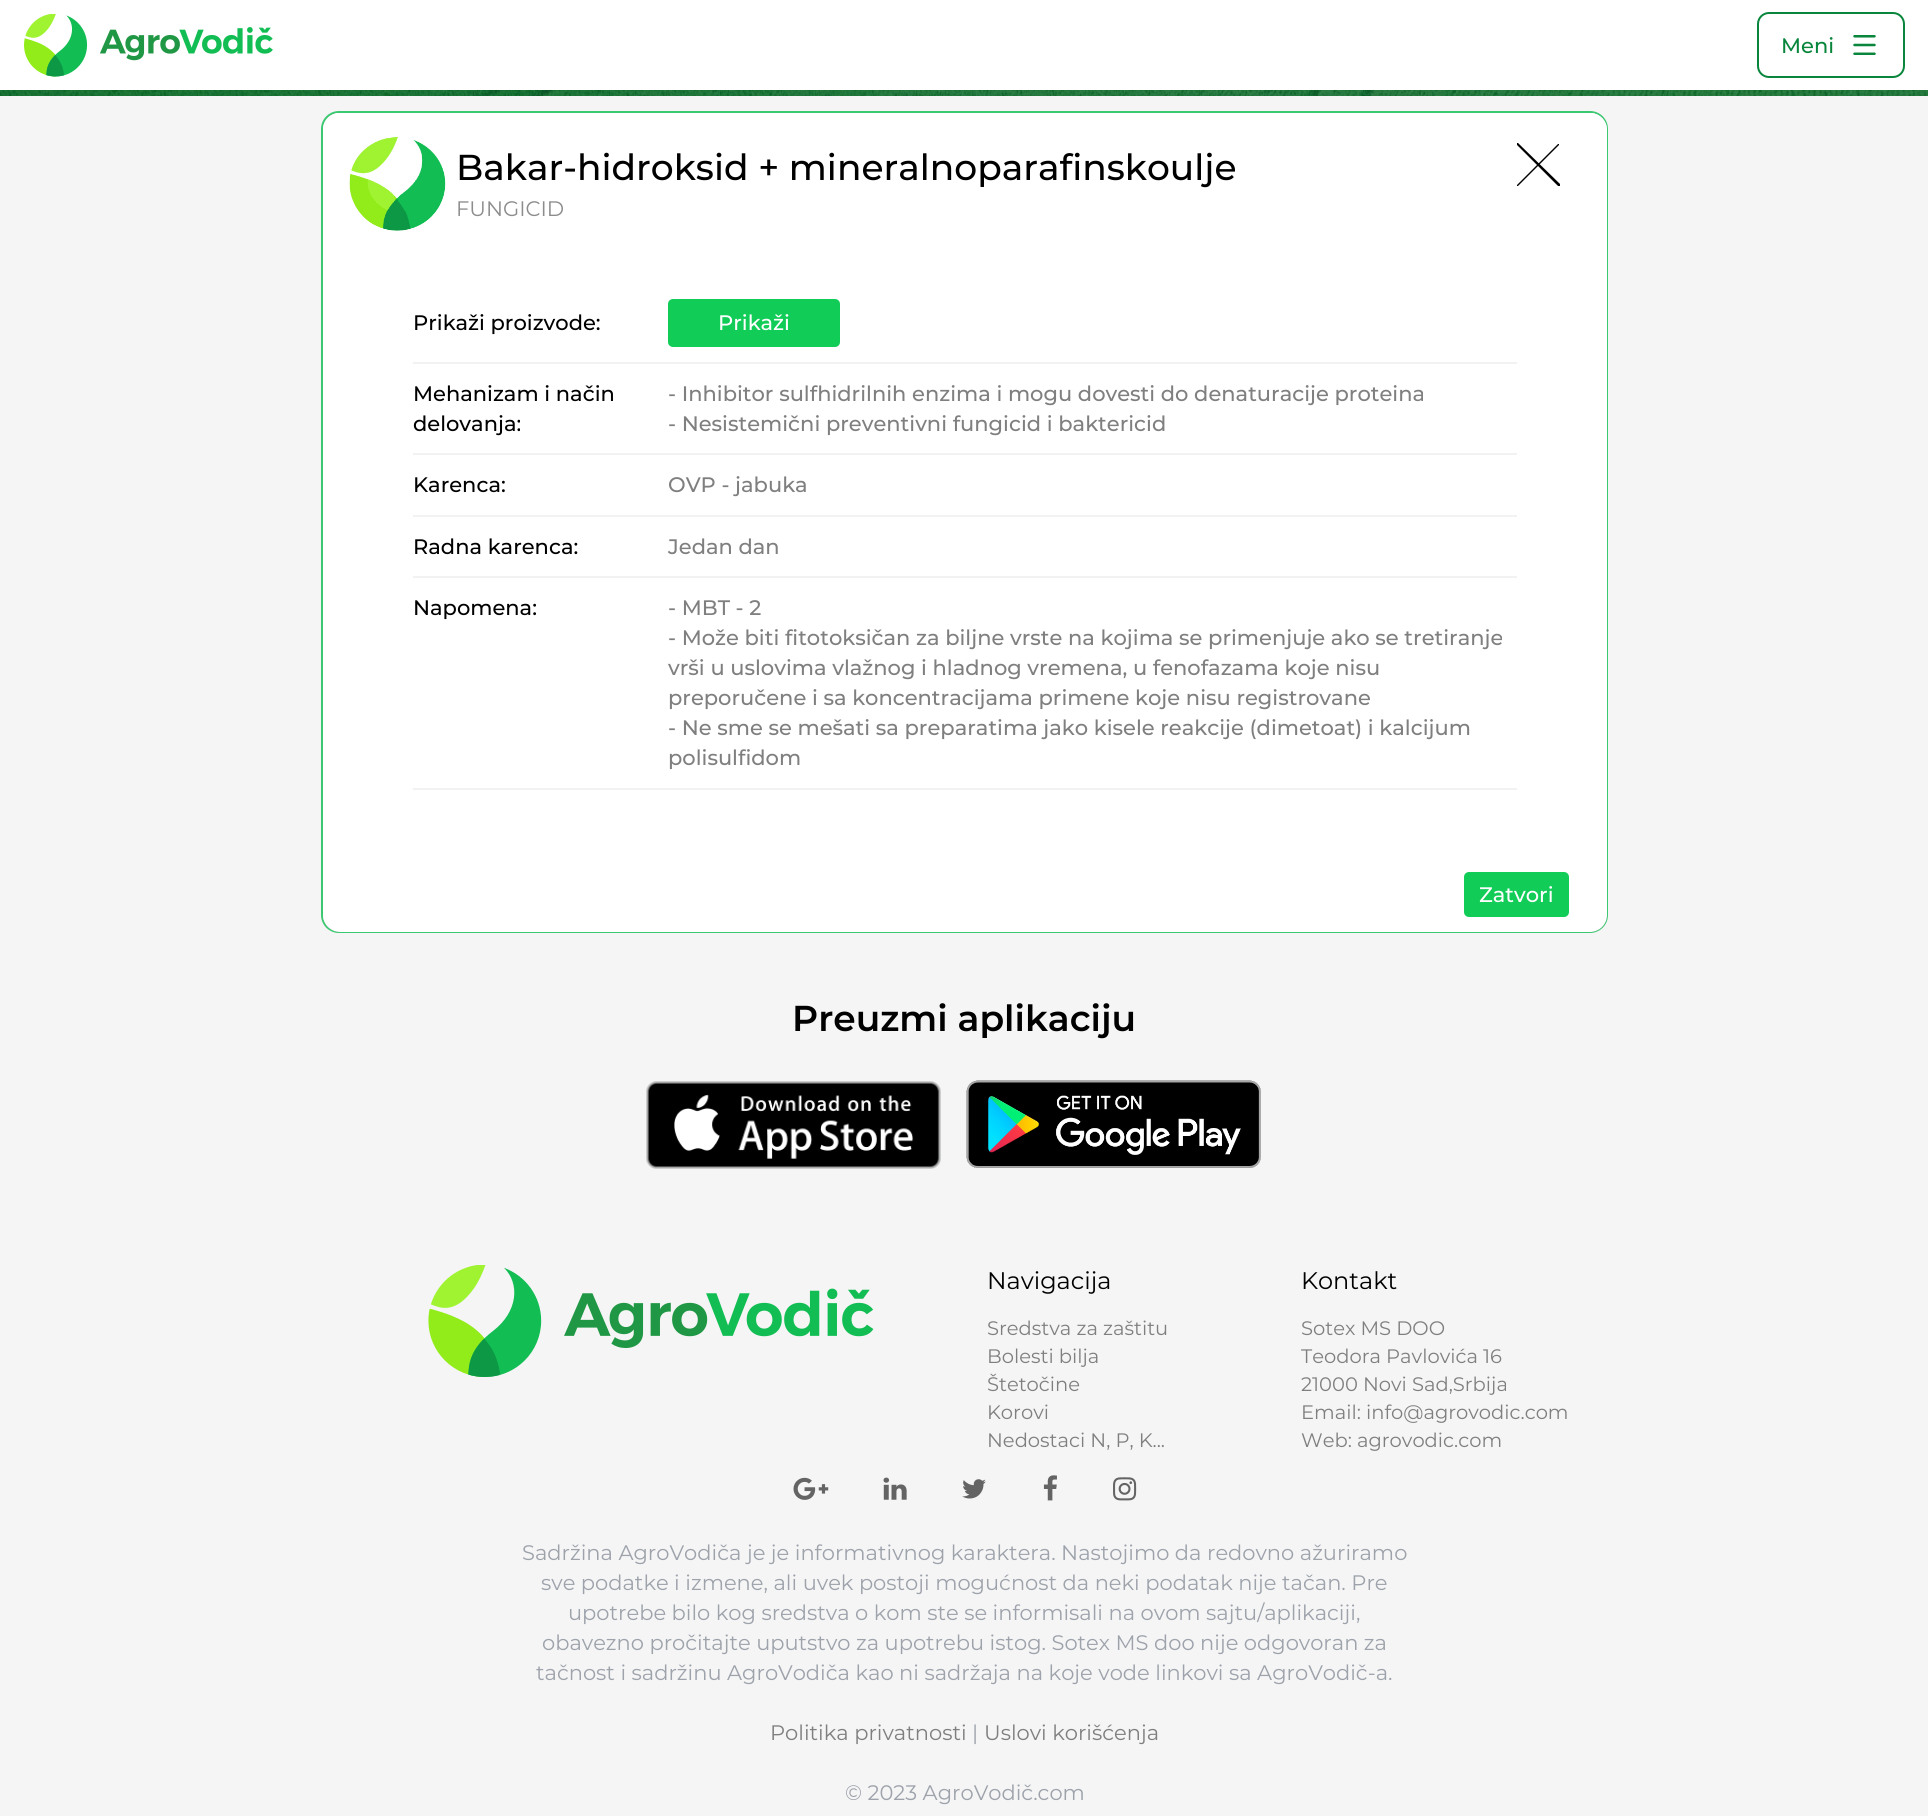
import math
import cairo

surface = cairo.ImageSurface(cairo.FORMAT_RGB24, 1928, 1816)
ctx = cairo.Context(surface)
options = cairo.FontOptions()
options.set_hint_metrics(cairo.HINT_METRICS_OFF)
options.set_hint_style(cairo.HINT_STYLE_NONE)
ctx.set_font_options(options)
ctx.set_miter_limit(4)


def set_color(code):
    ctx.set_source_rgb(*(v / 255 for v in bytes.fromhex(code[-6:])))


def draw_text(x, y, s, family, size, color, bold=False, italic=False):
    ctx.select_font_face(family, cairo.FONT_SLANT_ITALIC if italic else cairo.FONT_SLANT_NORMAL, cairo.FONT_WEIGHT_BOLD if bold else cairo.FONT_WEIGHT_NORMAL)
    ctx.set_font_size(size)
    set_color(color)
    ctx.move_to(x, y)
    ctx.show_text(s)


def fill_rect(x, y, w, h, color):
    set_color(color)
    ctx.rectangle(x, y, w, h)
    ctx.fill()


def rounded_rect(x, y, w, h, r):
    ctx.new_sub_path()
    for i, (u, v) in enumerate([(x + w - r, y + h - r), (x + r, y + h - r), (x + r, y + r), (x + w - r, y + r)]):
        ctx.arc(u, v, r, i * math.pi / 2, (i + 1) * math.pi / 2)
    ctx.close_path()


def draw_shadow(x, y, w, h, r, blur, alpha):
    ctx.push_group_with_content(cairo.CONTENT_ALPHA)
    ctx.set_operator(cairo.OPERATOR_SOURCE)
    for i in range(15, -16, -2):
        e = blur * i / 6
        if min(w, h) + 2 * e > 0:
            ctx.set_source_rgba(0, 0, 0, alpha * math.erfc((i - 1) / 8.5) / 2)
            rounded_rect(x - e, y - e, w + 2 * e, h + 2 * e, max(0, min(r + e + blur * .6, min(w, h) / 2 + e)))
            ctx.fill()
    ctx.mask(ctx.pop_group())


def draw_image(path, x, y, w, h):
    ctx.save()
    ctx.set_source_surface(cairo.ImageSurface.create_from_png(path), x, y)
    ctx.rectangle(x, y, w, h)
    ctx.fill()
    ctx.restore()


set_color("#f5f5f5")
ctx.paint()
draw_image("assets/img3.png", 0, 90, 1928, 6)
rounded_rect(322, 112, 1285, 820, 17)
set_color("#3cc871")
ctx.stroke()
ctx.save()
rounded_rect(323, 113, 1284, 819, 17)
ctx.clip()
set_color("#000000")
draw_shadow(323, 120, 1284, 819, 0, 11, 0.5)
ctx.restore()
fill_rect(0, 0, 1928, 90, "#ffffff")
draw_image("assets/img1.png", 24, 14, 249, 63)
rounded_rect(1758, 13, 146, 64, 11)
set_color("#09863c")
ctx.stroke()
draw_text(1781, 53, "Meni", "Montserrat Medium", 21, "#09863c")
draw_image("assets/img2.png", 1853, 35, 23, 20)
set_color("#ffffff")
rounded_rect(323, 113, 1284, 819, 17)
ctx.fill()
ctx.new_path()
ctx.move_to(340, 113)
ctx.line_to(1590, 113)
ctx.curve_to(1599.5, 113, 1607, 120.5, 1607, 130)
ctx.line_to(1607, 231)
ctx.line_to(323, 231)
ctx.line_to(323, 130)
ctx.curve_to(323, 120.5, 330.5, 113, 340, 113)
ctx.close_path()
ctx.fill()
draw_image("assets/img4.png", 349, 137, 97, 94)
draw_text(456, 180, "Bakar-hidroksid + mineralnoparafinskoulje", "Montserrat Medium", 36, "#000000")
draw_text(456, 216, "FUNGICID", "Montserrat", 21, "#8c8c8c")
set_color("#000000")
ctx.new_path()
ctx.move_to(1559, 144)
ctx.line_to(1559, 145)
ctx.line_to(1518, 186)
ctx.line_to(1517, 186)
ctx.line_to(1517, 185)
ctx.line_to(1558, 144)
ctx.close_path()
ctx.fill()
ctx.new_path()
ctx.move_to(1517, 143)
ctx.line_to(1517, 145)
ctx.line_to(1558, 186)
ctx.line_to(1560, 186)
ctx.line_to(1560, 184)
ctx.line_to(1518, 143)
ctx.close_path()
ctx.fill()
draw_text(413, 330, "Prikaži proizvode:", "Montserrat Medium", 21, "#000000")
set_color("#12cc58")
rounded_rect(668, 299, 172, 48, 5)
ctx.fill()
draw_text(718, 330, "Prikaži", "Montserrat Medium", 21, "#ffffff")
fill_rect(413, 362, 1104, 2, "#f2f2f2")
draw_text(413, 401, "Mehanizam i način", "Montserrat Medium", 21, "#000000")
draw_text(413, 431, "delovanja:", "Montserrat Medium", 21, "#000000")
draw_text(668, 401, "- Inhibitor sulfhidrilnih enzima i mogu dovesti do denaturacije proteina", "Montserrat Medium", 21, "#7f7f7f")
draw_text(668, 431, "- Nesistemični preventivni fungicid i baktericid", "Montserrat Medium", 21, "#7f7f7f")
fill_rect(413, 453, 1104, 2, "#f2f2f2")
draw_text(413, 492, "Karenca:", "Montserrat Medium", 21, "#000000")
draw_text(668, 492, "OVP - jabuka", "Montserrat Medium", 21, "#7f7f7f")
fill_rect(413, 515, 1104, 2, "#f2f2f2")
draw_text(413, 554, "Radna karenca:", "Montserrat Medium", 21, "#000000")
draw_text(668, 554, "Jedan dan", "Montserrat Medium", 21, "#7f7f7f")
fill_rect(413, 576, 1104, 2, "#f2f2f2")
draw_text(413, 615, "Napomena:", "Montserrat Medium", 21, "#000000")
draw_text(668, 615, "- MBT - 2", "Montserrat Medium", 21, "#7f7f7f")
draw_text(668, 645, "- Može biti fitotoksičan za biljne vrste na kojima se primenjuje ako se tretiranje", "Montserrat Medium", 21, "#7f7f7f")
draw_text(668, 675, "vrši u uslovima vlažnog i hladnog vremena, u fenofazama koje nisu", "Montserrat Medium", 21, "#7f7f7f")
draw_text(668, 705, "preporučene i sa koncentracijama primene koje nisu registrovane", "Montserrat Medium", 21, "#7f7f7f")
draw_text(668, 735, "- Ne sme se mešati sa preparatima jako kisele reakcije (dimetoat) i kalcijum", "Montserrat Medium", 21, "#7f7f7f")
draw_text(668, 765, "polisulfidom", "Montserrat Medium", 21, "#7f7f7f")
fill_rect(413, 788, 1104, 2, "#f2f2f2")
set_color("#12cc58")
rounded_rect(1464, 872, 105, 45, 5)
ctx.fill()
draw_text(1479, 902, "Zatvori", "Montserrat Medium", 21, "#ffffff")
draw_text(792, 1031, "Preuzmi aplikaciju", "Montserrat SemiBold", 36, "#000000")
draw_image("assets/img5.png", 646, 1081, 295, 88)
draw_image("assets/img6.png", 966, 1080, 295, 88)
draw_image("assets/img7.png", 428, 1265, 446, 112)
draw_text(987, 1289, "Navigacija", "Montserrat", 24, "#000000")
draw_text(987, 1335, "Sredstva za zaštitu", "Montserrat", 19.5, "#7f7f7f")
draw_text(987, 1363, "Bolesti bilja", "Montserrat", 19.5, "#7f7f7f")
draw_text(987, 1391, "Štetočine", "Montserrat", 19.5, "#7f7f7f")
draw_text(987, 1419, "Korovi", "Montserrat", 19.5, "#7f7f7f")
draw_text(987, 1447, "Nedostaci N, P, K...", "Montserrat", 19.5, "#7f7f7f")
draw_text(1301, 1289, "Kontakt", "Montserrat", 24, "#000000")
draw_text(1301, 1335, "Sotex MS DOO", "Montserrat", 19.5, "#7f7f7f")
draw_text(1301, 1363, "Teodora Pavlovića 16", "Montserrat", 19.5, "#7f7f7f")
draw_text(1301, 1391, "21000 Novi Sad,Srbija", "Montserrat", 19.5, "#7f7f7f")
draw_text(1301, 1419, "Email: info@agrovodic.com", "Montserrat", 19.5, "#7f7f7f")
draw_text(1301, 1447, "Web: agrovodic.com", "Montserrat", 19.5, "#7f7f7f")
draw_image("assets/img8.png", 793, 1477, 36, 23)
draw_image("assets/img9.png", 883, 1477, 24, 23)
draw_image("assets/img10.png", 962, 1479, 24, 20)
draw_image("assets/img11.png", 1043, 1475, 14, 26)
draw_image("assets/img12.png", 1113, 1477, 24, 24)
draw_text(522, 1560, "Sadržina AgroVodiča je je informativnog karaktera. Nastojimo da redovno ažuriramo", "Montserrat", 21, "#9da2ab")
draw_text(541, 1590, "sve podatke i izmene, ali uvek postoji mogućnost da neki podatak nije tačan. Pre", "Montserrat", 21, "#9da2ab")
draw_text(568, 1620, "upotrebe bilo kog sredstva o kom ste se informisali na ovom sajtu/aplikaciji,", "Montserrat", 21, "#9da2ab")
draw_text(542, 1650, "obavezno pročitajte uputstvo za upotrebu istog. Sotex MS doo nije odgovoran za", "Montserrat", 21, "#9da2ab")
draw_text(536, 1680, "tačnost i sadržinu AgroVodiča kao ni sadržaja na koje vode linkovi sa AgroVodič-a.", "Montserrat", 21, "#9da2ab")
draw_text(770, 1740, "Politika privatnosti", "Montserrat", 21, "#7f7f7f")
draw_text(972, 1740, "|", "Montserrat", 21, "#9da2ab")
draw_text(984, 1740, "Uslovi korišćenja", "Montserrat", 21, "#7f7f7f")
draw_text(845, 1800, "© 2023 AgroVodič.com", "Montserrat", 21, "#9da2ab")
surface.write_to_png("output.png")
